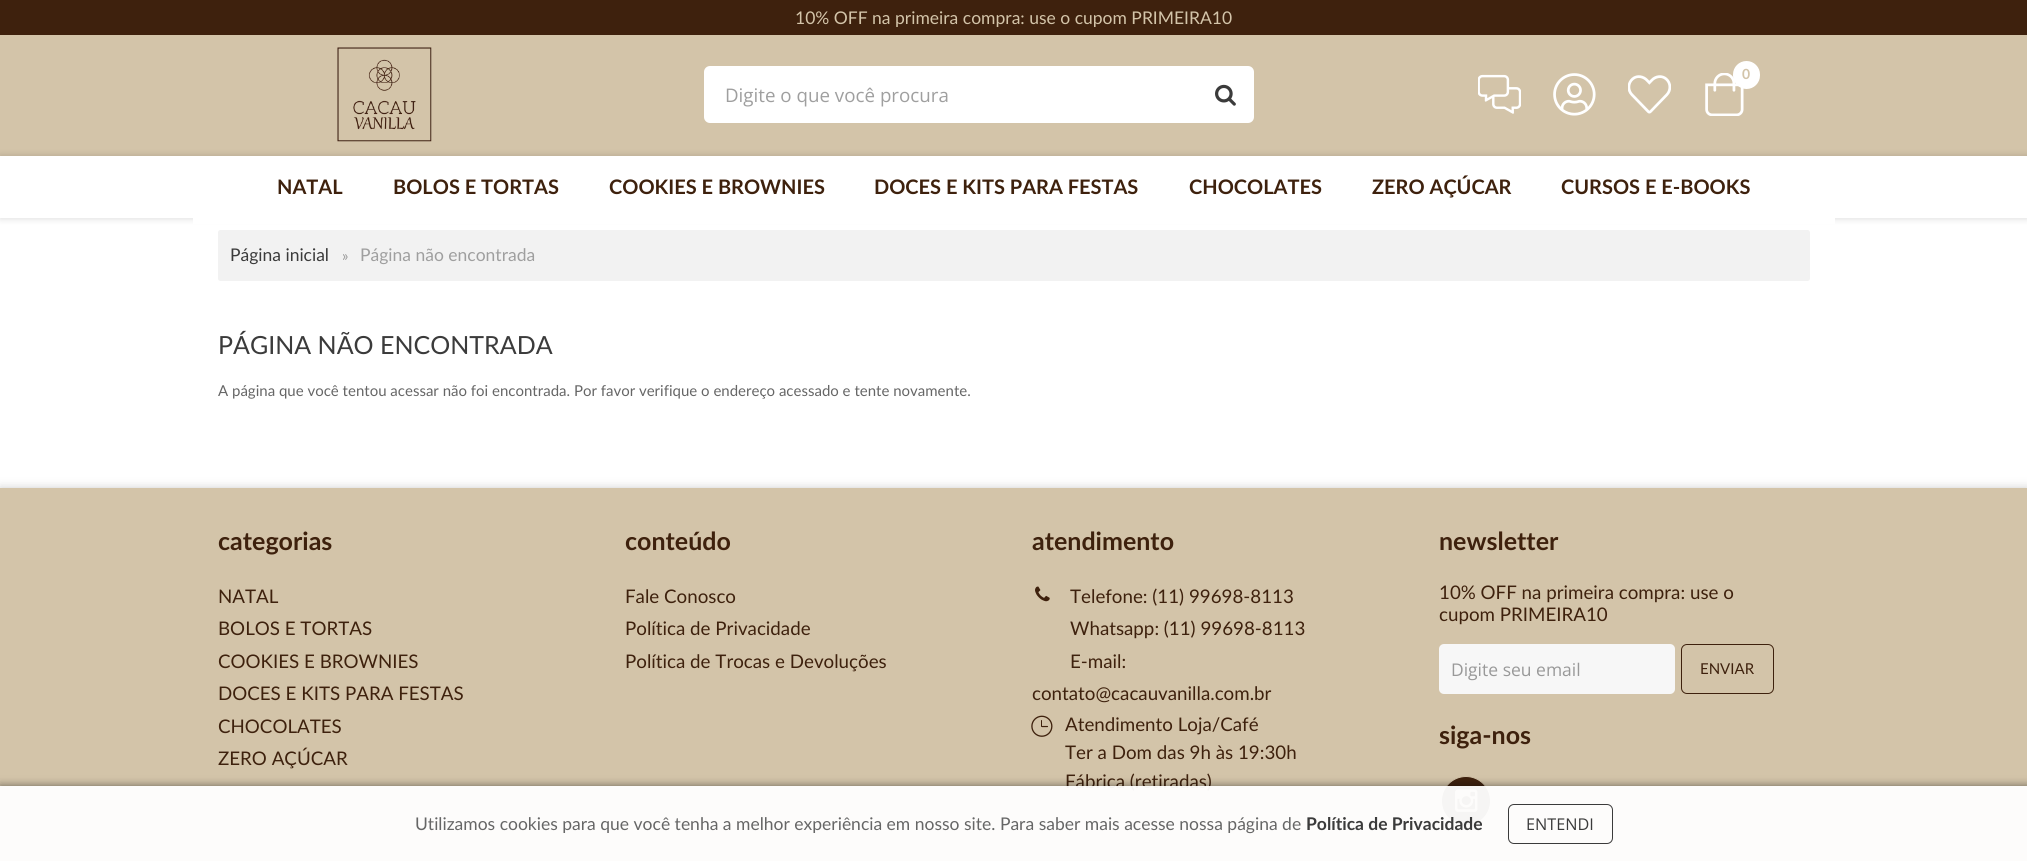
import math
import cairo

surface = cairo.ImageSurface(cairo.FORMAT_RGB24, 2027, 861)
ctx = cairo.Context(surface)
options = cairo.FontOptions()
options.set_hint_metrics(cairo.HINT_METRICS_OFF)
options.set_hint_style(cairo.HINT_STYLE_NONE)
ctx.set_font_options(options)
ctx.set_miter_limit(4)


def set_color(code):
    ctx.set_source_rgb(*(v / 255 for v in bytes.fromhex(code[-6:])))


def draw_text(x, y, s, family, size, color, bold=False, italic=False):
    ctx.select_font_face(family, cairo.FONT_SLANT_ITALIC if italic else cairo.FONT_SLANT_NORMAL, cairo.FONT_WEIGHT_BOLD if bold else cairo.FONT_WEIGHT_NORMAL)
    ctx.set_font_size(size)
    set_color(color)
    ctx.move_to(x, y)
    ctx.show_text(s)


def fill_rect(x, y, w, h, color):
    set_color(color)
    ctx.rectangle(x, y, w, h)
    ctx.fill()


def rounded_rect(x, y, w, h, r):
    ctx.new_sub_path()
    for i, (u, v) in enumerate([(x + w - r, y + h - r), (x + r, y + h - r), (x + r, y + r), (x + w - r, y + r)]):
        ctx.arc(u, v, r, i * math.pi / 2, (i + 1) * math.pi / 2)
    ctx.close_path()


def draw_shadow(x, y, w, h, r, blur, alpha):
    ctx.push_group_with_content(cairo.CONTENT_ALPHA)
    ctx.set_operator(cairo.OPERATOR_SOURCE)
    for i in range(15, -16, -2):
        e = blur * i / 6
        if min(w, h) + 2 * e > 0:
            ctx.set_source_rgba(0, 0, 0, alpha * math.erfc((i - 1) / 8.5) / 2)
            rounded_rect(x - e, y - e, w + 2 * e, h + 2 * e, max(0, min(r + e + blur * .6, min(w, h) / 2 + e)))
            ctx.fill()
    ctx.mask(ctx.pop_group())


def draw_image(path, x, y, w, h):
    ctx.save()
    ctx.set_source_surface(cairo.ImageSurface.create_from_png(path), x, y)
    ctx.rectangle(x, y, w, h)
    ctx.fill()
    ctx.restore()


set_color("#ffffff")
ctx.paint()
fill_rect(0, 0, 2027, 35, "#3e210d")
draw_text(795, 24, "10% OFF na primeira compra: use o cupom PRIMEIRA10", "Lato", 17.5, "#d3c4a9")
fill_rect(0, 35, 2027, 121, "#d3c4a9")
draw_image("assets/img1.png", 337, 47, 95, 95)
draw_image("assets/img2.png", 1478, 74, 43, 40)
draw_image("assets/img3.png", 1553, 73, 43, 43)
draw_image("assets/img4.png", 1628, 75, 43, 39)
draw_image("assets/img5.png", 1705, 73, 39, 43)
set_color("#ffffff")
rounded_rect(1733, 61, 27, 28, 13.5)
ctx.fill()
draw_text(1742, 79, "0", "Lato", 14, "#d3c4a9", bold=True)
set_color("#ffffff")
rounded_rect(704, 66, 550, 57, 6)
ctx.fill()
draw_text(725, 102, "Digite o que você procura", "Open Sans", 18.75, "#9f9f9f")
draw_image("assets/img6.png", 1215, 84, 21, 22)
set_color("#000000")
draw_shadow(0, 156, 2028, 62, 0, 4, 0.16)
fill_rect(0, 156, 2027, 62, "#ffffff")
draw_text(277, 194, "NATAL", "Lato", 20, "#3e210d", bold=True)
draw_text(393, 194, "BOLOS E TORTAS", "Lato", 20, "#3e210d", bold=True)
draw_text(609, 194, "COOKIES E BROWNIES", "Lato", 20, "#3e210d", bold=True)
draw_text(874, 194, "DOCES E KITS PARA FESTAS", "Lato", 20, "#3e210d", bold=True)
draw_text(1189, 194, "CHOCOLATES", "Lato", 20, "#3e210d", bold=True)
draw_text(1372, 194, "ZERO AÇÚCAR", "Lato", 20, "#3e210d", bold=True)
draw_text(1561, 194, "CURSOS E E-BOOKS", "Lato", 20, "#3e210d", bold=True)
fill_rect(193, 218, 1642, 6, "#ffffff")
set_color("#f2f2f2")
rounded_rect(218, 230, 1592, 51, 2.5)
ctx.fill()
draw_text(230, 261, "Página inicial", "Lato", 17.5, "#3b3b3b")
draw_text(342, 261, "»", "Lato", 15, "#999999")
draw_text(360, 261, "Página não encontrada", "Lato", 17.5, "#9f9f9f")
draw_text(218, 354, "PÁGINA NÃO ENCONTRADA", "Lato", 25, "#3b3b3b")
draw_text(218, 396, "A página que você tentou acessar não foi encontrada. Por favor verifique o endereço acessado e tente novamente.", "Lato", 15, "#666666")
set_color("#000000")
draw_shadow(0, 488, 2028, 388, 0, 5, 0.2)
fill_rect(0, 488, 2027, 373, "#d3c4a9")
draw_text(218, 550, "categorias", "Lato", 25, "#3e210d", bold=True)
draw_text(218, 603, "NATAL", "Lato", 18.75, "#3e210d")
draw_text(218, 635, "BOLOS E TORTAS", "Lato", 18.75, "#3e210d")
draw_text(218, 668, "COOKIES E BROWNIES", "Lato", 18.75, "#3e210d")
draw_text(218, 700, "DOCES E KITS PARA FESTAS", "Lato", 18.75, "#3e210d")
draw_text(218, 733, "CHOCOLATES", "Lato", 18.75, "#3e210d")
draw_text(218, 765, "ZERO AÇÚCAR", "Lato", 18.75, "#3e210d")
draw_text(625, 550, "conteúdo", "Lato", 25, "#3e210d", bold=True)
draw_text(625, 603, "Fale Conosco", "Lato", 18.75, "#3e210d")
draw_text(625, 635, "Política de Privacidade", "Lato", 18.75, "#3e210d")
draw_text(625, 668, "Política de Trocas e Devoluções", "Lato", 18.75, "#3e210d")
draw_text(1032, 550, "atendimento", "Lato", 25, "#3e210d", bold=True)
draw_image("assets/img7.png", 1035, 586, 15, 16)
draw_text(1070, 603, "Telefone: (11) 99698-8113", "Lato", 18.75, "#3e210d")
draw_text(1070, 635, "Whatsapp: (11) 99698-8113", "Lato", 18.75, "#3e210d")
draw_text(1070, 668, "E-mail:", "Lato", 18.75, "#3e210d")
draw_text(1032, 700, "contato@cacauvanilla.com.br", "Lato", 18.75, "#3e210d")
draw_image("assets/img8.png", 1031, 715, 22, 22)
draw_text(1065, 731, "Atendimento Loja/Café", "Lato", 18.75, "#3e210d")
draw_text(1065, 759, "Ter a Dom das 9h às 19:30h", "Lato", 18.75, "#3e210d")
draw_text(1065, 788, "Fábrica (retiradas)", "Lato", 18.75, "#3e210d")
draw_text(1439, 550, "newsletter", "Lato", 25, "#3e210d", bold=True)
draw_text(1439, 599, "10% OFF na primeira compra: use o", "Lato", 18.75, "#3e210d")
draw_text(1439, 621, "cupom PRIMEIRA10", "Lato", 18.75, "#3e210d")
set_color("#f7f7f7")
rounded_rect(1439, 644, 236, 50, 5)
ctx.fill()
draw_text(1451, 676, "Digite seu email", "Open Sans", 17.5, "#999999")
rounded_rect(1681.5, 644.5, 92, 49, 5.5)
set_color("#3e210d")
ctx.set_line_width(1)
ctx.stroke()
draw_text(1700, 674, "ENVIAR", "Lato", 15, "#3e210d")
draw_text(1439, 744, "siga-nos", "Lato", 25, "#3e210d", bold=True)
ctx.new_path()
ctx.arc(1466, 801, 24.5, 0, 2 * math.pi)
ctx.fill_preserve()
set_color("#d3c4a9")
ctx.stroke()
draw_image("assets/img9.png", 1455, 789, 23, 23)
ctx.save()
ctx.set_fill_rule(cairo.FILL_RULE_EVEN_ODD)
ctx.new_path()
ctx.move_to(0, 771)
ctx.line_to(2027, 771)
ctx.line_to(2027, 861)
ctx.line_to(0, 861)
ctx.close_path()
ctx.move_to(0, 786)
ctx.line_to(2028, 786)
ctx.line_to(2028, 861)
ctx.line_to(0, 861)
ctx.close_path()
ctx.clip()
set_color("#000000")
draw_shadow(0, 786, 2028, 75, 0, 4.5, 0.5)
ctx.restore()
ctx.set_source_rgba(1, 1, 1, 0.95)
ctx.rectangle(0, 786, 2027, 75)
ctx.fill()
draw_text(415, 830, "Utilizamos cookies para que você tenha a melhor experiência em nosso site. Para saber mais acesse nossa página de", "Lato", 17.5, "#666666")
draw_text(1306, 830, "Política de Privacidade", "Lato", 17.5, "#3b3b3b", bold=True)
rounded_rect(1508.5, 804.5, 104, 39, 5.5)
ctx.stroke()
draw_text(1526, 830, "ENTENDI", "Open Sans", 16.25, "#3b3b3b")
surface.write_to_png("output.png")
